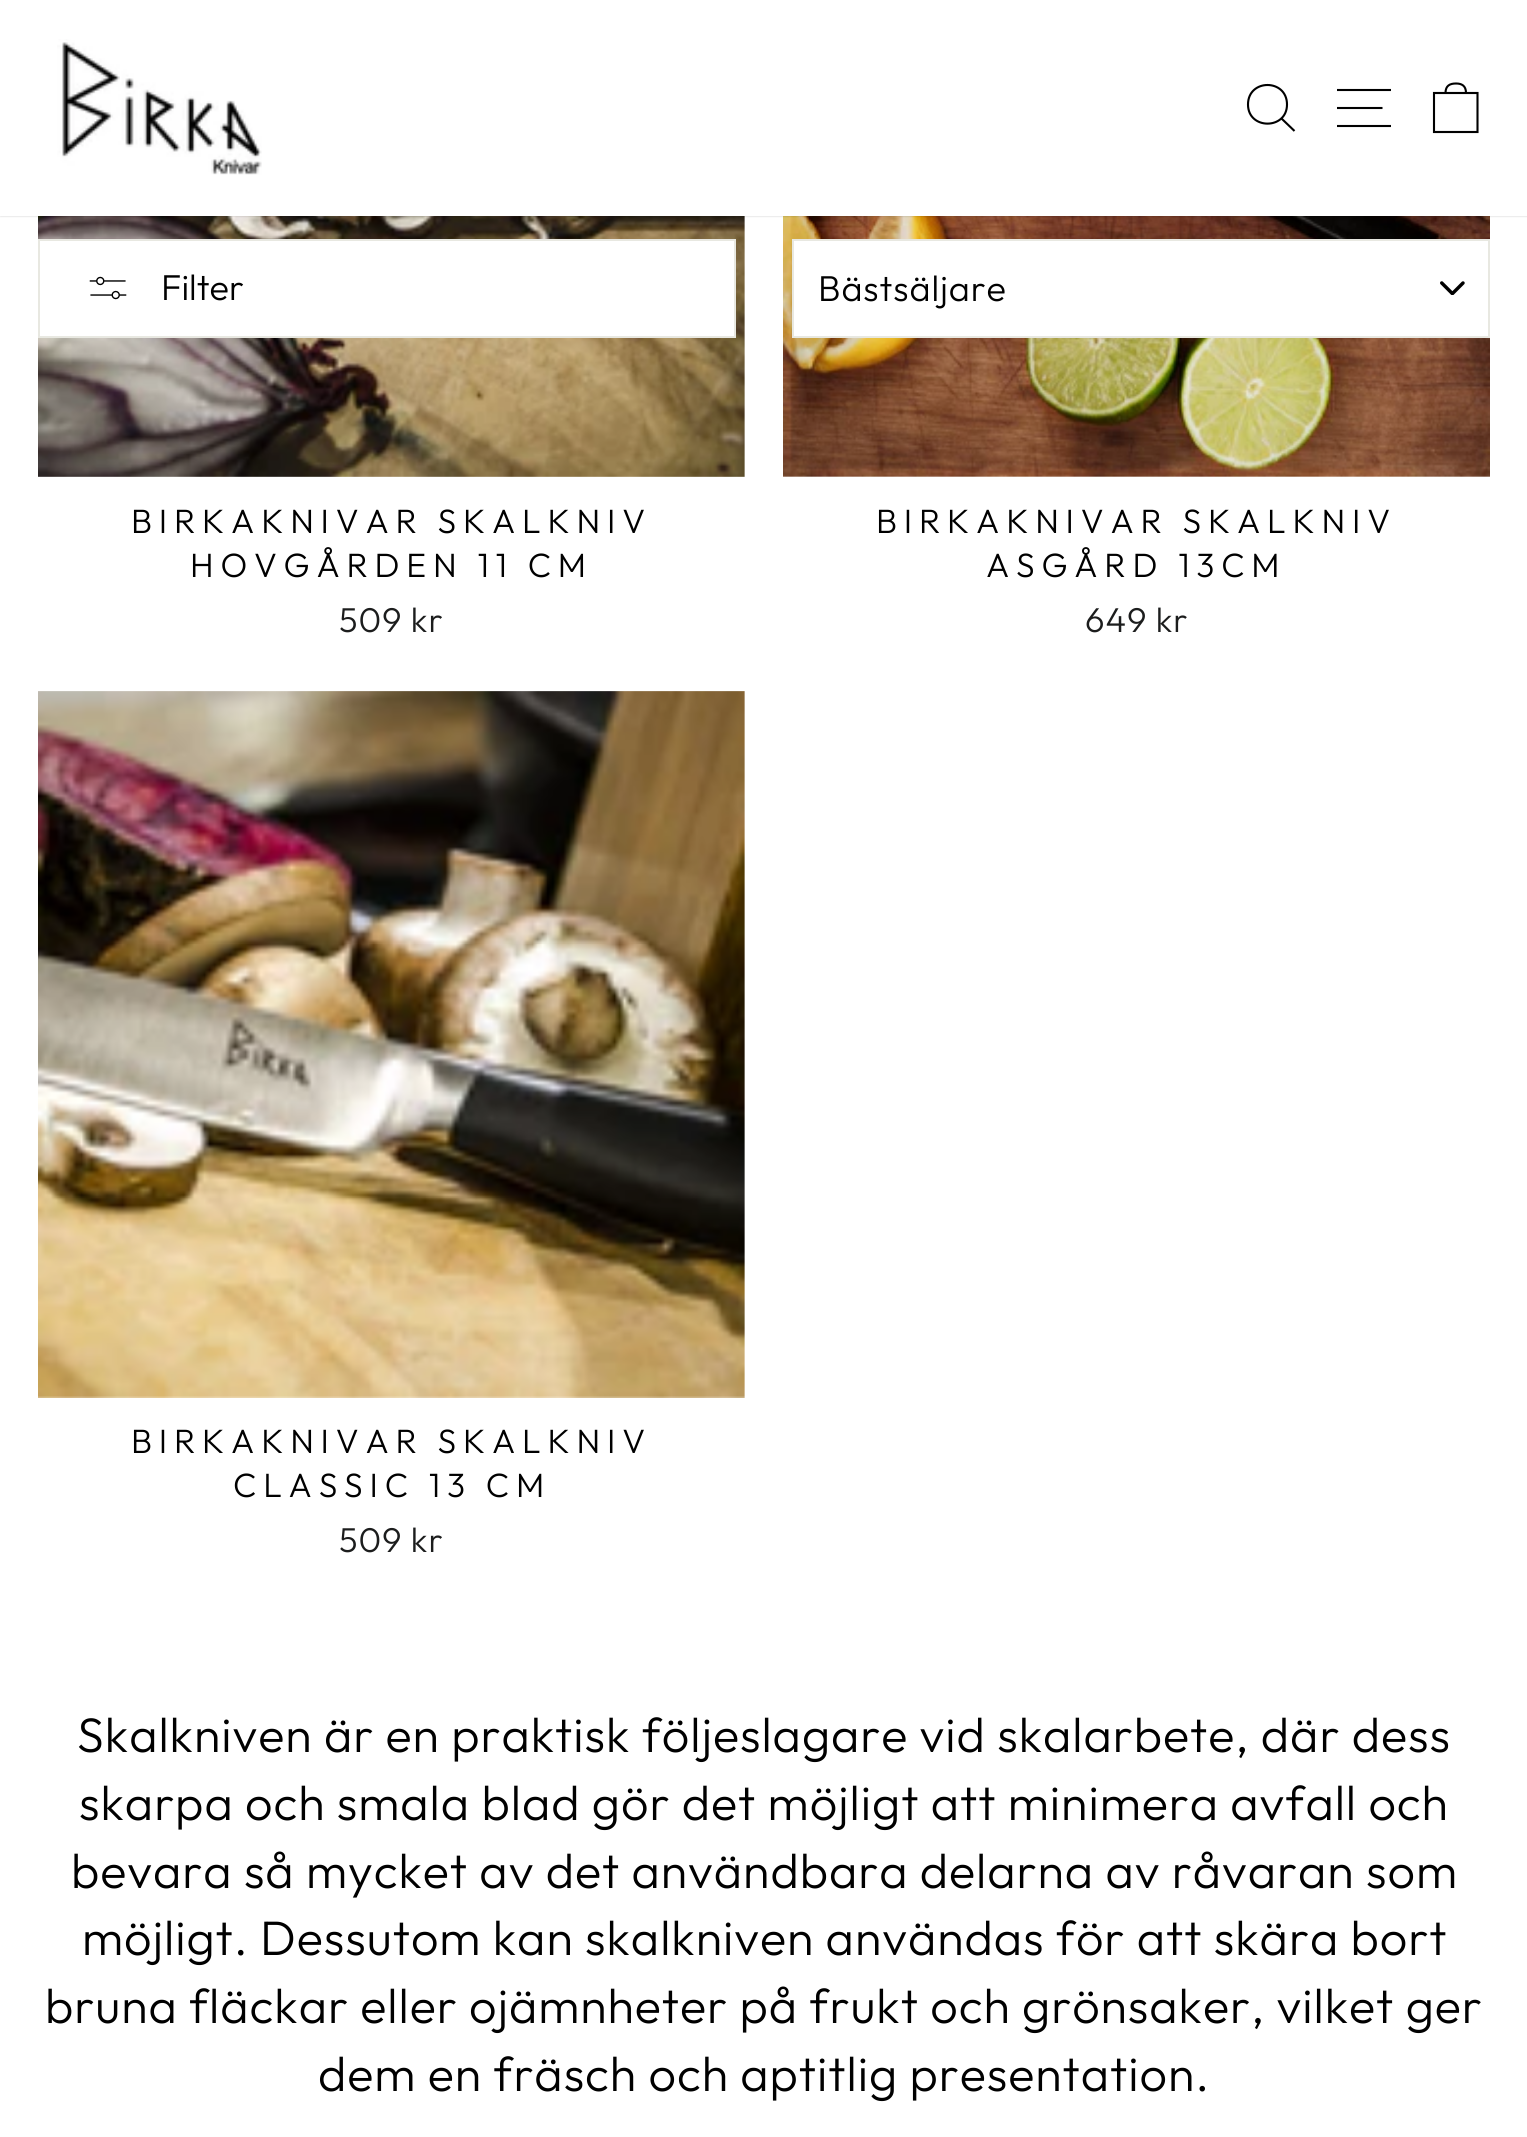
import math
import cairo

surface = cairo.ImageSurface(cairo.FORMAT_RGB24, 1527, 2137)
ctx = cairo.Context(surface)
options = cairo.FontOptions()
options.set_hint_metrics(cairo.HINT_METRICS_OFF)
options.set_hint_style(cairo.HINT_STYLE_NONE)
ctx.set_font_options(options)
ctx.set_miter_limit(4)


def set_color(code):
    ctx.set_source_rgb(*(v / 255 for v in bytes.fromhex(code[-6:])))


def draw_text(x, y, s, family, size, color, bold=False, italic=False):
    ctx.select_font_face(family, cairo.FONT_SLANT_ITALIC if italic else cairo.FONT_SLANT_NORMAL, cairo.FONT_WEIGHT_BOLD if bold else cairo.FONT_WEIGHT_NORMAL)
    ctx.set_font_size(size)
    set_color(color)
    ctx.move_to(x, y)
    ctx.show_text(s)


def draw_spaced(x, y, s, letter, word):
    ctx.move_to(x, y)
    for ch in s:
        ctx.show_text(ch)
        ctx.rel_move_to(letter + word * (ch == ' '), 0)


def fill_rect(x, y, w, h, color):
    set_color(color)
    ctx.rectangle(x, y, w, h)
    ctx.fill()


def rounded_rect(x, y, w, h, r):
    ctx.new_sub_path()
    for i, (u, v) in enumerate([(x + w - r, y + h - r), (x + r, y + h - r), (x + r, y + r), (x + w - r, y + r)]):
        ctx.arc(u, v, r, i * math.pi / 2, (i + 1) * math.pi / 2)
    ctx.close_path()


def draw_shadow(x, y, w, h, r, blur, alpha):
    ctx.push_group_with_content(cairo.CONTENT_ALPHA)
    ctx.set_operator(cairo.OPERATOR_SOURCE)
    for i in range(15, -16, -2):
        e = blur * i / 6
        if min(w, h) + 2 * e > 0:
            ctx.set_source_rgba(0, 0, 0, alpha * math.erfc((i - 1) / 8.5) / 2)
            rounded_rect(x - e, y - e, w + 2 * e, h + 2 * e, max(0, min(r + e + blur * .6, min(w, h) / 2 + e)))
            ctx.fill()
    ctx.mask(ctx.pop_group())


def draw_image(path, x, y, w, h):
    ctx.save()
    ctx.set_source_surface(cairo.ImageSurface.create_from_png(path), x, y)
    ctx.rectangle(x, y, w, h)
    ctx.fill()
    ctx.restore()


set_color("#ffffff")
ctx.paint()
draw_image("assets/img4.png", 38, 216, 707, 261)
draw_image("assets/img5.png", 783, 216, 707, 261)
set_color("#000000")
draw_shadow(0, 0, 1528, 216, 0, 1, 0.2)
fill_rect(0, 0, 1527, 216, "#ffffff")
draw_image("assets/img1.png", 57, 39, 205, 136)
ctx.new_path()
ctx.move_to(1287, 104.5)
ctx.curve_to(1287, 130, 1248, 130, 1248, 104.5)
ctx.curve_to(1248, 78.5, 1287, 78.5, 1287, 104.5)
ctx.close_path()
ctx.move_to(1294.5, 131)
ctx.line_to(1281.5, 118.5)
set_color("#000000")
ctx.set_line_width(2.1)
ctx.stroke()
ctx.new_path()
ctx.move_to(1337, 90)
ctx.line_to(1391, 90)
ctx.move_to(1337, 108)
ctx.line_to(1382.5, 108)
ctx.move_to(1337, 126)
ctx.line_to(1391, 126)
ctx.stroke()
ctx.new_path()
ctx.move_to(1434, 93)
ctx.line_to(1477.5, 93)
ctx.line_to(1477.5, 132)
ctx.line_to(1434, 132)
ctx.close_path()
ctx.move_to(1445.5, 93)
ctx.curve_to(1445.5, 85.5, 1450, 83.5, 1456, 83.5)
ctx.curve_to(1461.5, 83.5, 1466, 85.5, 1466, 93)
ctx.stroke()
set_color("#ffffff")
ctx.rectangle(39, 240, 696, 97)
ctx.fill_preserve()
set_color("#e8e8e1")
ctx.set_line_width(2)
ctx.stroke()
draw_image("assets/img2.png", 89, 276, 38, 24)
draw_text(161, 300, "Filter", "Outfit Light", 36, "#000000")
fill_rect(794, 241, 694, 95, "#ffffff")
draw_image("assets/img3.png", 1440, 281, 25, 14)
ctx.rectangle(793, 240, 696, 97)
set_color("#e8e8e1")
ctx.stroke()
set_color("#000000")
draw_spaced(818, 301, "Bästsäljare", 0.9, 0)
ctx.set_font_size(33.75)
draw_spaced(131, 533, "BIRKAKNIVAR SKALKNIV", 6.75, 0)
draw_spaced(190, 577, "HOVGÅRDEN 11 CM", 6.75, 0)
ctx.set_font_size(34.5)
set_color("#1c1d1d")
draw_spaced(339, 632, "509 kr", 0.93, 0)
ctx.set_font_size(33.75)
set_color("#000000")
draw_spaced(876, 533, "BIRKAKNIVAR SKALKNIV", 6.75, 0)
draw_spaced(986, 577, "ASGÅRD 13CM", 6.75, 0)
ctx.set_font_size(34.5)
set_color("#1c1d1d")
draw_spaced(1085, 632, "649 kr", 0.93, 0)
draw_image("assets/img6.png", 38, 691, 707, 707)
ctx.set_font_size(33.75)
set_color("#000000")
draw_spaced(131, 1453, "BIRKAKNIVAR SKALKNIV", 6.75, 0)
draw_spaced(233, 1497, "CLASSIC 13 CM", 6.75, 0)
ctx.set_font_size(34.5)
set_color("#1c1d1d")
draw_spaced(339, 1552, "509 kr", 0.93, 0)
ctx.set_font_size(48.45)
set_color("#000000")
draw_spaced(77, 1752, "Skalkniven är en praktisk följeslagare vid skalarbete, där dess", 0.93, 0)
draw_spaced(79, 1820, "skarpa och smala blad gör det möjligt att minimera avfall och", 0.93, 0)
draw_spaced(71, 1888, "bevara så mycket av det användbara delarna av råvaran som", 0.93, 0)
draw_spaced(82, 1955, "möjligt. Dessutom kan skalkniven användas för att skära bort", 0.93, 0)
draw_spaced(45, 2023, "bruna fläckar eller ojämnheter på frukt och grönsaker, vilket ger", 0.93, 0)
draw_spaced(318, 2091, "dem en fräsch och aptitlig presentation.", 0.93, 0)
surface.write_to_png("output.png")
